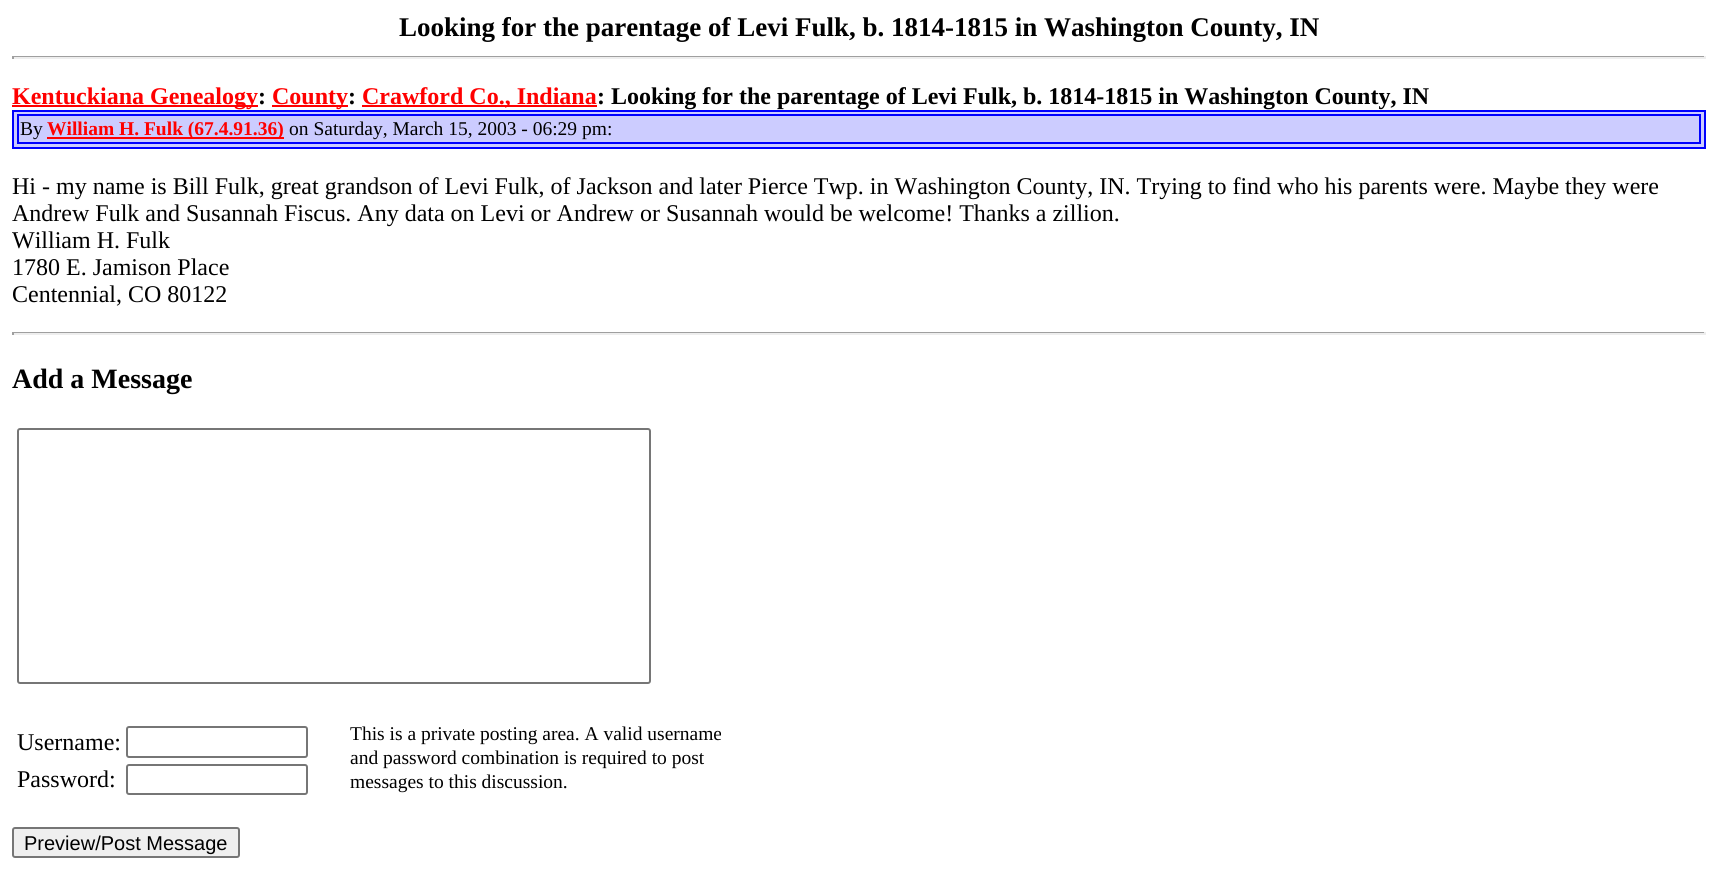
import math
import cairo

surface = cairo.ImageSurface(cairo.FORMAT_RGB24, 1717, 885)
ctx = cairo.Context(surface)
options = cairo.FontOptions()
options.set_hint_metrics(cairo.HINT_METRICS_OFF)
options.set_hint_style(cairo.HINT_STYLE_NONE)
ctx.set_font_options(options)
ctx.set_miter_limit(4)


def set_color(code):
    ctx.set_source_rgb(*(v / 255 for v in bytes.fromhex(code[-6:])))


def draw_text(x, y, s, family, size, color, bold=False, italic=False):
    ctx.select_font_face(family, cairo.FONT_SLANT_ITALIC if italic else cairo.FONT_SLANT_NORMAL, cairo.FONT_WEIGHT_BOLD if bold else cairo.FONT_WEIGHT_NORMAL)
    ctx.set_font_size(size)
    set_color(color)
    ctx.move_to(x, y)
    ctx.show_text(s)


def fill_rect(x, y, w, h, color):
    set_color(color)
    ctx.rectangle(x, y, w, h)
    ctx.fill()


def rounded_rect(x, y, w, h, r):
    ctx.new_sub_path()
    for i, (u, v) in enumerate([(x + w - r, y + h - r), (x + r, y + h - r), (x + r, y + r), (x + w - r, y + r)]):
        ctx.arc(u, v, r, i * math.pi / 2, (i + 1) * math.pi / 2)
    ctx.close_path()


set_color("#ffffff")
ctx.paint()
draw_text(399, 36, "Looking for the parentage of Levi Fulk, b. 1814-1815 in Washington County, IN", "Liberation Serif", 27, "#000000", bold=True)
fill_rect(12, 56, 1694, 1, "#9f9f9f")
fill_rect(1704, 56, 2, 3, "#eeeeee")
fill_rect(12, 57, 1694, 2, "#eeeeee")
fill_rect(12, 56, 2, 3, "#9f9f9f")
fill_rect(12, 105, 246, 2, "#ff0000")
draw_text(12, 104, "Kentuckiana Genealogy", "Liberation Serif", 24, "#ff0000", bold=True)
draw_text(258, 104, ":", "Liberation Serif", 24, "#000000", bold=True)
fill_rect(272, 105, 76, 2, "#ff0000")
draw_text(272, 104, "County", "Liberation Serif", 24, "#ff0000", bold=True)
draw_text(348, 104, ":", "Liberation Serif", 24, "#000000", bold=True)
fill_rect(362, 105, 235, 2, "#ff0000")
draw_text(362, 104, "Crawford Co., Indiana", "Liberation Serif", 24, "#ff0000", bold=True)
draw_text(597, 104, ": Looking for the parentage of Levi Fulk, b. 1814-1815 in Washington County, IN", "Liberation Serif", 24, "#000000", bold=True)
set_color("#ccccff")
ctx.rectangle(13, 111, 1692, 37)
ctx.fill_preserve()
set_color("#0000ff")
ctx.stroke()
ctx.rectangle(18, 115, 1682, 28)
ctx.stroke()
draw_text(20, 135, "By", "Liberation Serif", 19.5, "#000000")
fill_rect(47, 137, 237, 2, "#ff0000")
draw_text(47, 135, "William H. Fulk (67.4.91.36)", "Liberation Serif", 19.5, "#ff0000", bold=True)
draw_text(289, 135, "on Saturday, March 15, 2003 - 06:29 pm:", "Liberation Serif", 19.5, "#000000")
draw_text(12, 194, "Hi - my name is Bill Fulk, great grandson of Levi Fulk, of Jackson and later Pierce Twp. in Washington County, IN. Trying to find who his parents were. Maybe they were", "Liberation Serif", 24, "#000000")
draw_text(12, 221, "Andrew Fulk and Susannah Fiscus. Any data on Levi or Andrew or Susannah would be welcome! Thanks a zillion.", "Liberation Serif", 24, "#000000")
draw_text(12, 248, "William H. Fulk", "Liberation Serif", 24, "#000000")
draw_text(12, 275, "1780 E. Jamison Place", "Liberation Serif", 24, "#000000")
draw_text(12, 302, "Centennial, CO 80122", "Liberation Serif", 24, "#000000")
fill_rect(12, 332, 1694, 1, "#9f9f9f")
fill_rect(1704, 332, 2, 3, "#eeeeee")
fill_rect(12, 333, 1694, 2, "#eeeeee")
fill_rect(12, 332, 2, 3, "#9f9f9f")
draw_text(12, 388, "Add a Message", "Liberation Serif", 28, "#000000", bold=True)
rounded_rect(18, 429, 632, 254, 2)
set_color("#767676")
ctx.stroke()
draw_text(17, 750, "Username:", "Liberation Serif", 24, "#000000")
rounded_rect(127, 727, 180, 30, 2)
set_color("#767676")
ctx.stroke()
draw_text(350, 740, "This is a private posting area. A valid username", "Liberation Serif", 19.5, "#000000")
draw_text(350, 764, "and password combination is required to post", "Liberation Serif", 19.5, "#000000")
draw_text(350, 788, "messages to this discussion.", "Liberation Serif", 19.5, "#000000")
draw_text(17, 787, "Password:", "Liberation Serif", 24, "#000000")
rounded_rect(127, 765, 180, 29, 2)
set_color("#767676")
ctx.stroke()
set_color("#efefef")
rounded_rect(13, 828, 226, 29, 2)
ctx.fill_preserve()
set_color("#767676")
ctx.stroke()
draw_text(24, 850, "Preview/Post Message", "Liberation Sans", 20, "#000000")
surface.write_to_png("output.png")
